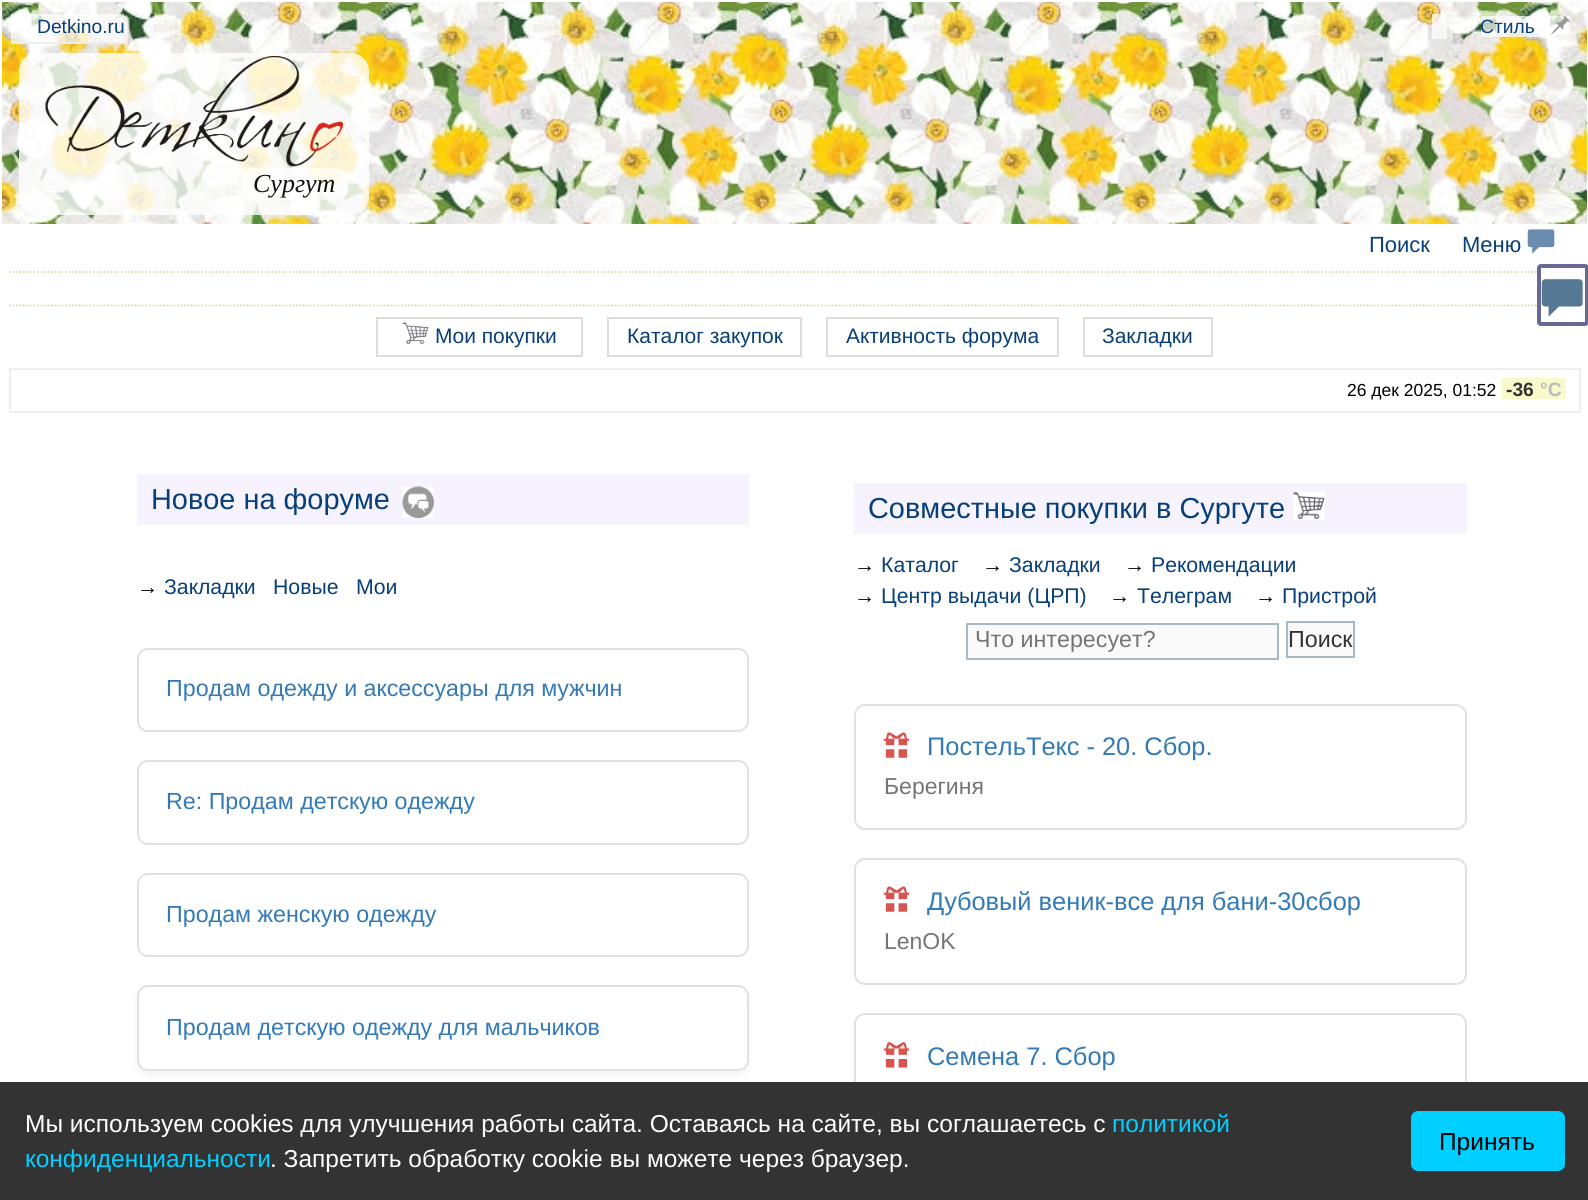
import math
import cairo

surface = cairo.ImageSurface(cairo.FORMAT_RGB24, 1588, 1200)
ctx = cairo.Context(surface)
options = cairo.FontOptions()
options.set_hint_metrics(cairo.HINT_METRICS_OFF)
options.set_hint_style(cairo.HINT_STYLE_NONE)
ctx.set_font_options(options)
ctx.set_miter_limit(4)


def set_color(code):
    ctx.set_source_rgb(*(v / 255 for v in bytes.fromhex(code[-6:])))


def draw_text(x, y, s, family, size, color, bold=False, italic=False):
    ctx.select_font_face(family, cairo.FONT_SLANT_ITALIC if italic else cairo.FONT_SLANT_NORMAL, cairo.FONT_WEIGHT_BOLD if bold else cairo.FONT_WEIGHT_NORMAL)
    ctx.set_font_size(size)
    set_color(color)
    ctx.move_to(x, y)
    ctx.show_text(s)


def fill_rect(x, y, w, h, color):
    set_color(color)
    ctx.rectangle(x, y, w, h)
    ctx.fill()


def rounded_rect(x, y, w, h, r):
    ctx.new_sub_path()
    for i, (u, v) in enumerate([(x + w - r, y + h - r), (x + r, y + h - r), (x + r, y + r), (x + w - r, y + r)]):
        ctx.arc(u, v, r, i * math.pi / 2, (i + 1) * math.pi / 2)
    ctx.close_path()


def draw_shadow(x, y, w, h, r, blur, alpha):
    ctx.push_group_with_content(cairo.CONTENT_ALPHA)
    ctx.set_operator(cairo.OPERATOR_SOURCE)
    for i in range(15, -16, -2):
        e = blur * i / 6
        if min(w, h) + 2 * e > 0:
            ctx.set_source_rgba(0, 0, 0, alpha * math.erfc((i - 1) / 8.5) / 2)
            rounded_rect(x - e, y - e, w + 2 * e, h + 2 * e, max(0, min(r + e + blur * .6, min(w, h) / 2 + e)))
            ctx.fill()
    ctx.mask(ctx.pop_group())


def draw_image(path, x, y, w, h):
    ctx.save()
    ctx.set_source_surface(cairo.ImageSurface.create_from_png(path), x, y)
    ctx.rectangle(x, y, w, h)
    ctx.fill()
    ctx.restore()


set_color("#ffffff")
ctx.paint()
draw_image("assets/img1.png", 2, 2, 1585, 222)
ctx.set_source_rgba(1, 1, 1, 0.7)
ctx.rectangle(11, 14, 113, 28)
ctx.fill()
fill_rect(11, 42, 113, 2, "#eeeeee")
draw_text(37, 33, "Detkino.ru", "Liberation Sans", 19.25, "#083f78")
ctx.set_source_rgba(1, 1, 1, 0.7)
ctx.rectangle(1432, 14, 15, 25)
ctx.fill()
ctx.rectangle(1481, 16, 54, 21)
ctx.fill()
ctx.rectangle(1535, 16, 16, 21)
ctx.fill()
ctx.rectangle(1551, 16, 19, 19)
ctx.fill()
draw_text(1480, 33, "Стиль", "Liberation Sans", 19.25, "#083f78")
draw_image("assets/img2.png", 1550, 15, 20, 20)
ctx.set_source_rgba(1, 1, 1, 0.8)
rounded_rect(19, 53, 350, 162, 18)
ctx.fill()
draw_image("assets/img3.png", 45, 56, 298, 111)
ctx.set_source_rgba(1, 1, 1, 0.6)
rounded_rect(242, 168, 105, 32, 11)
ctx.fill()
draw_text(253, 192, "Сургут", "Liberation Serif", 26, "#111111", italic=True)
draw_text(1369, 252, "Поиск", "Liberation Sans", 22, "#083f78")
draw_text(1462, 252, "Меню", "Liberation Sans", 22, "#083f78")
draw_image("assets/img4.png", 1527, 229, 28, 25)
ctx.new_path()
ctx.move_to(9, 272)
ctx.line_to(1580, 272)
set_color("#e2d9b3")
ctx.set_line_width(1.8)
ctx.set_dash([1.75, 1.75])
ctx.stroke()
ctx.new_path()
ctx.move_to(9, 305.5)
ctx.line_to(1580, 305.5)
ctx.stroke()
ctx.rectangle(377, 318, 205, 38)
set_color("#dddddd")
ctx.set_line_width(2)
ctx.set_dash([])
ctx.stroke()
draw_image("assets/img5.png", 402, 322, 27, 22)
draw_text(435, 343, "Мои покупки", "Liberation Sans", 21, "#083f78")
ctx.rectangle(608, 318, 193, 38)
set_color("#dddddd")
ctx.stroke()
draw_text(627, 343, "Каталог закупок", "Liberation Sans", 21, "#083f78")
ctx.rectangle(827, 318, 231, 38)
set_color("#dddddd")
ctx.stroke()
draw_text(846, 343, "Активность форума", "Liberation Sans", 21, "#083f78")
ctx.rectangle(1084, 318, 128, 38)
set_color("#dddddd")
ctx.stroke()
draw_text(1102, 343, "Закладки", "Liberation Sans", 21, "#083f78")
fill_rect(9, 368, 1571, 2, "#eeeeee")
fill_rect(1579, 368, 2, 45, "#eeeeee")
fill_rect(9, 411, 1571, 2, "#eeeeee")
fill_rect(9, 368, 2, 45, "#eeeeee")
draw_text(1347, 396, "26 дек 2025, 01:52", "Liberation Sans", 17.5, "#000000")
fill_rect(1502, 378, 64, 21, "#f9f9cc")
draw_text(1506, 396, "-36", "Liberation Sans", 19.25, "#333333", bold=True)
draw_text(1540, 396, "°C", "Liberation Sans", 19.25, "#bbbbbb", bold=True)
fill_rect(137, 474, 612, 51, "#f6f3ff")
draw_text(151, 509, "Новое на форуме", "Liberation Sans", 28.9, "#083f78")
draw_image("assets/img6.png", 402, 486, 32, 32)
draw_text(137, 594, "→", "Liberation Sans", 21.25, "#000000")
draw_text(164, 594, "Закладки", "Liberation Sans", 21.25, "#083f78")
draw_text(273, 594, "Новые", "Liberation Sans", 21.25, "#083f78")
draw_text(356, 594, "Мои", "Liberation Sans", 21.25, "#083f78")
rounded_rect(138, 649, 610, 82, 10)
set_color("#e1e1e1")
ctx.stroke()
draw_text(166, 696, "Продам одежду и аксессуары для мужчин", "Liberation Sans", 23.25, "#337ab7")
rounded_rect(138, 761, 610, 83, 10)
set_color("#e1e1e1")
ctx.stroke()
draw_text(166, 809, "Re: Продам детскую одежду", "Liberation Sans", 23.25, "#337ab7")
rounded_rect(138, 874, 610, 82, 10)
set_color("#e1e1e1")
ctx.stroke()
draw_text(166, 922, "Продам женскую одежду", "Liberation Sans", 23.25, "#337ab7")
ctx.save()
ctx.set_fill_rule(cairo.FILL_RULE_EVEN_ODD)
ctx.new_path()
ctx.move_to(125, 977)
ctx.line_to(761, 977)
ctx.line_to(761, 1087)
ctx.line_to(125, 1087)
ctx.close_path()
ctx.move_to(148, 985)
ctx.line_to(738, 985)
ctx.curve_to(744, 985, 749, 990, 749, 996)
ctx.line_to(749, 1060)
ctx.curve_to(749, 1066, 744, 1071, 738, 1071)
ctx.line_to(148, 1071)
ctx.curve_to(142, 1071, 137, 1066, 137, 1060)
ctx.line_to(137, 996)
ctx.curve_to(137, 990, 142, 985, 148, 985)
ctx.close_path()
ctx.clip()
set_color("#000000")
draw_shadow(137, 989, 612, 86, 11, 3.5, 0.05)
ctx.restore()
rounded_rect(138, 986, 610, 84, 10)
set_color("#e1e1e1")
ctx.stroke()
draw_text(166, 1035, "Продам детскую одежду для мальчиков", "Liberation Sans", 23.25, "#337ab7")
fill_rect(854, 483, 613, 51, "#f6f3ff")
draw_text(868, 518, "Совместные покупки в Сургуте", "Liberation Sans", 28.9, "#083f78")
draw_image("assets/img7.png", 1293, 491, 32, 29)
draw_text(854, 572, "→", "Liberation Sans", 21.25, "#000000")
draw_text(881, 572, "Каталог", "Liberation Sans", 21.25, "#083f78")
draw_text(982, 572, "→", "Liberation Sans", 21.25, "#000000")
draw_text(1009, 572, "Закладки", "Liberation Sans", 21.25, "#083f78")
draw_text(1124, 572, "→", "Liberation Sans", 21.25, "#000000")
draw_text(1151, 572, "Рекомендации", "Liberation Sans", 21.25, "#083f78")
draw_text(854, 603, "→", "Liberation Sans", 21.25, "#000000")
draw_text(881, 603, "Центр выдачи (ЦРП)", "Liberation Sans", 21.25, "#083f78")
draw_text(1109, 603, "→", "Liberation Sans", 21.25, "#000000")
draw_text(1137, 603, "Телеграм", "Liberation Sans", 21.25, "#083f78")
draw_text(1255, 603, "→", "Liberation Sans", 21.25, "#000000")
draw_text(1282, 603, "Пристрой", "Liberation Sans", 21.25, "#083f78")
set_color("#fafafa")
ctx.rectangle(967, 624, 311, 35)
ctx.fill_preserve()
set_color("#a9b8c2")
ctx.stroke()
draw_text(975, 647, "Что интересует?", "Liberation Sans", 23.25, "#757575")
set_color("#fafafa")
ctx.rectangle(1287, 622, 67, 35)
ctx.fill_preserve()
set_color("#a9b8c2")
ctx.stroke()
draw_text(1288, 647, "Поиск", "Liberation Sans", 23.25, "#333333")
rounded_rect(855, 705, 611, 124, 10)
set_color("#e1e1e1")
ctx.stroke()
draw_image("assets/img8.png", 883, 732, 27, 26)
draw_text(927, 755, "ПостельТекс - 20. Сбор.", "Liberation Sans", 25.4, "#337ab7")
draw_text(884, 794, "Берегиня", "Liberation Sans", 23, "#757575")
rounded_rect(855, 859, 611, 125, 10)
set_color("#e1e1e1")
ctx.stroke()
draw_image("assets/img8.png", 883, 886, 27, 26)
draw_text(927, 910, "Дубовый веник-все для бани-30сбор", "Liberation Sans", 25.4, "#337ab7")
draw_text(884, 949, "LenOK", "Liberation Sans", 23, "#757575")
rounded_rect(855, 1014, 611, 124, 10)
set_color("#e1e1e1")
ctx.stroke()
draw_image("assets/img9.png", 883, 1042, 27, 26)
draw_text(927, 1065, "Семена 7. Сбор", "Liberation Sans", 25.4, "#337ab7")
ctx.set_source_rgba(1, 1, 1, 0.8)
rounded_rect(1537, 264, 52, 62, 4)
ctx.fill()
rounded_rect(1539, 266, 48, 58, 2)
ctx.set_source_rgba(0.255, 0.267, 0.471, 0.8)
ctx.set_line_width(4)
ctx.stroke()
draw_image("assets/img10.png", 1541, 279, 42, 38)
fill_rect(0, 1082, 1588, 118, "#333333")
draw_text(25, 1132, "Мы используем cookies для улучшения работы сайта. Оставаясь на сайте, вы соглашаетесь с", "Liberation Sans", 24.5, "#ffffff")
draw_text(1112, 1132, "политикой", "Liberation Sans", 24.5, "#00cfff")
draw_text(25, 1167, "конфиденциальности", "Liberation Sans", 24.5, "#00cfff")
draw_text(270, 1167, ". Запретить обработку cookie вы можете через браузер.", "Liberation Sans", 24.5, "#ffffff")
set_color("#00cfff")
rounded_rect(1411, 1111, 154, 60, 7)
ctx.fill()
draw_text(1439, 1150, "Принять", "Liberation Sans", 24.5, "#000000")
surface.write_to_png("output.png")
